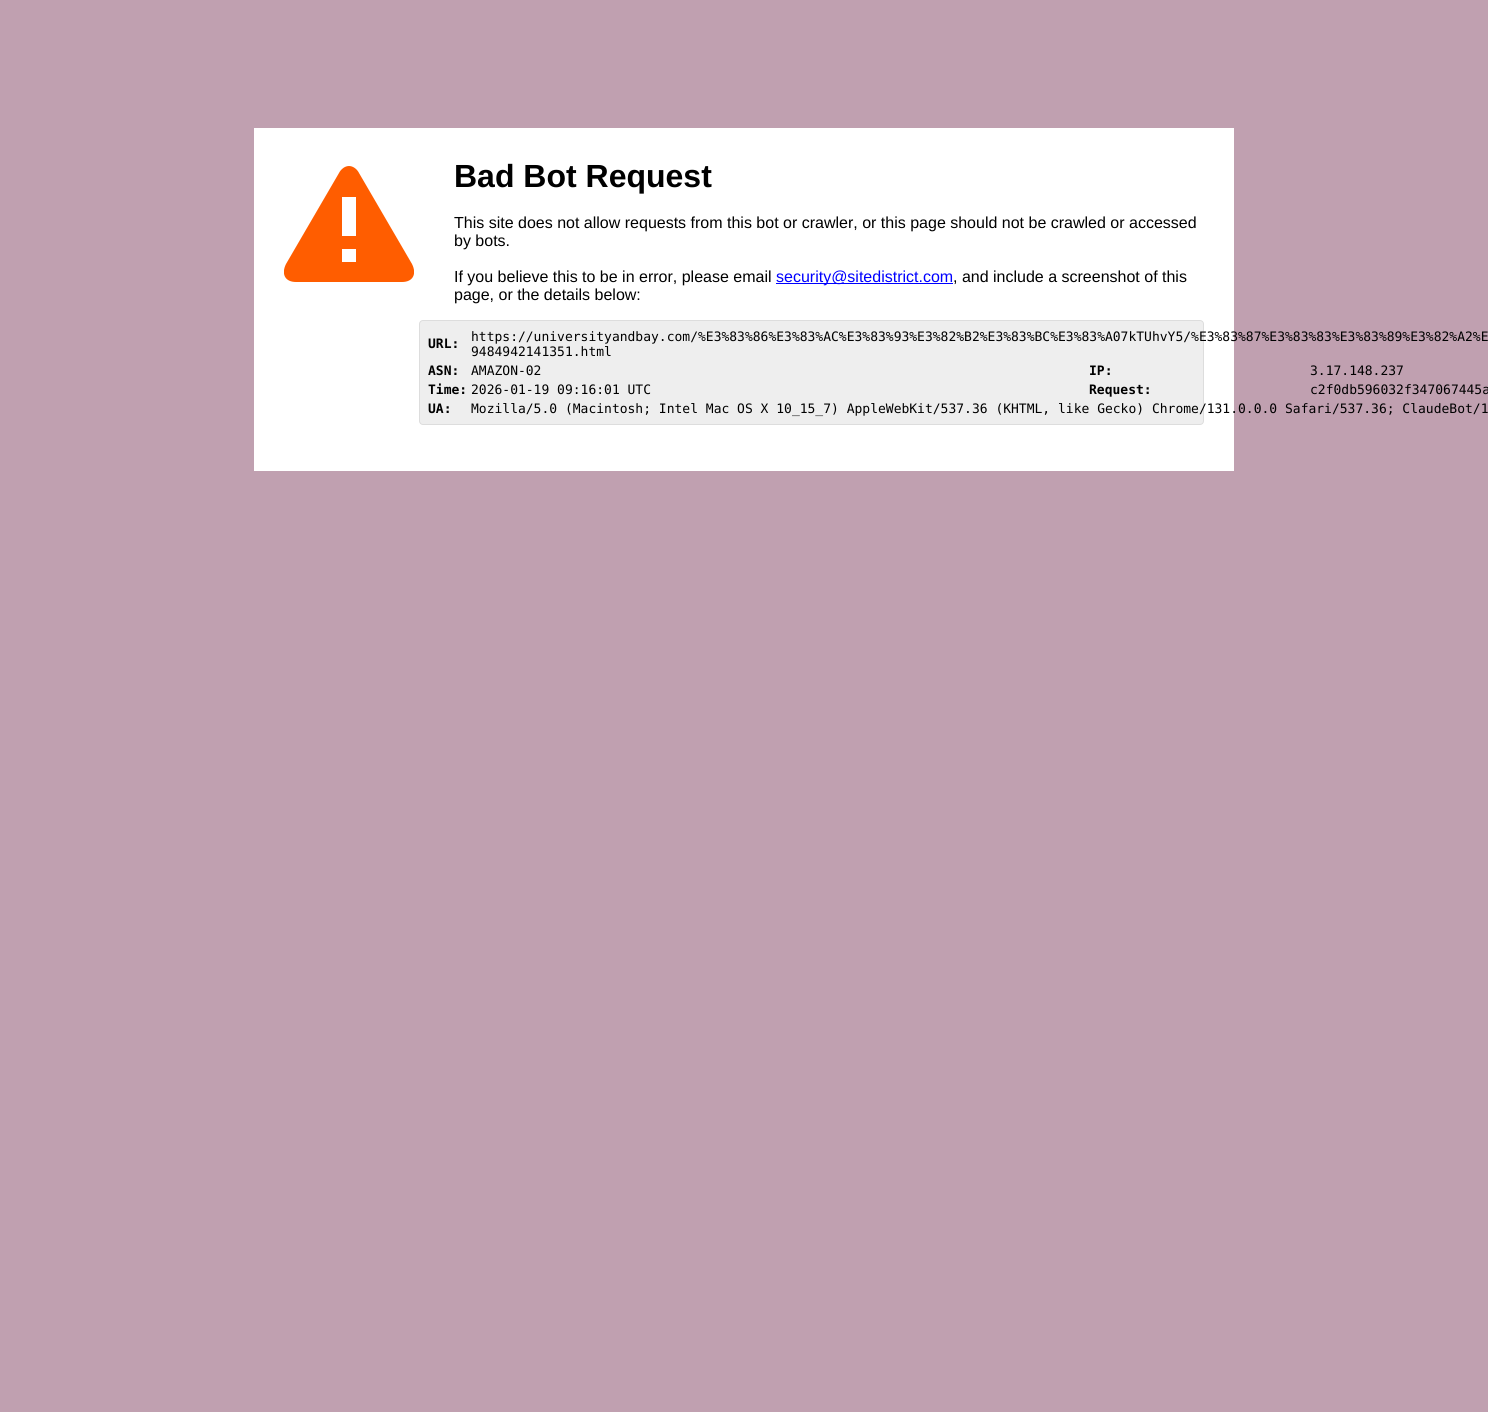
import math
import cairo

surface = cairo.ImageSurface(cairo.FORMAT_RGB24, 1488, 1412)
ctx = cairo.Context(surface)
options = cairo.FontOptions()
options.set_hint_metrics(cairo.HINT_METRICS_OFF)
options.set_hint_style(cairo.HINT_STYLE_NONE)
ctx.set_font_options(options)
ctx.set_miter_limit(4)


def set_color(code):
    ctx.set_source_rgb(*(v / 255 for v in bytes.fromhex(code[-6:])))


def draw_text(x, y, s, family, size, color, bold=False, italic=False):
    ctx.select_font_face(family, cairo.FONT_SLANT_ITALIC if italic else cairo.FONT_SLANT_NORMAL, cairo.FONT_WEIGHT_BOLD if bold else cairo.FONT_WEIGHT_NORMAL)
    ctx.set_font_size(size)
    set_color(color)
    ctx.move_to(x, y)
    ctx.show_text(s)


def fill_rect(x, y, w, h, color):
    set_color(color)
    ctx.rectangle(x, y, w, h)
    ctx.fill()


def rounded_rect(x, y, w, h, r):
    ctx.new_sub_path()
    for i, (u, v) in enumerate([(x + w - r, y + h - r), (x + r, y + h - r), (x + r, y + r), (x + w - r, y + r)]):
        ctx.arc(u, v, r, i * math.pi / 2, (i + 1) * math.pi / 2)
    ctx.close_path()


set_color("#c0a0b0")
ctx.paint()
fill_rect(254, 128, 980, 343, "#ffffff")
ctx.save()
ctx.rectangle(284, 158, 130, 130)
ctx.clip()
set_color("#ff5d00")
ctx.new_path()
ctx.move_to(412, 264)
ctx.line_to(359, 173)
ctx.curve_to(357, 169, 353, 166, 349, 166)
ctx.curve_to(345, 166, 341, 169, 339, 173)
ctx.line_to(286, 264)
ctx.curve_to(281, 274, 285, 282, 296, 282)
ctx.line_to(402, 282)
ctx.curve_to(413, 282, 417, 274, 412, 264)
ctx.close_path()
ctx.move_to(356, 262)
ctx.line_to(342, 262)
ctx.line_to(342, 249)
ctx.line_to(356, 249)
ctx.close_path()
ctx.move_to(356, 236)
ctx.line_to(342, 236)
ctx.line_to(342, 197)
ctx.line_to(356, 197)
ctx.close_path()
ctx.fill()
ctx.restore()
draw_text(454, 187, "Bad Bot Request", "Liberation Sans", 32, "#000000", bold=True)
draw_text(454, 228, "This site does not allow requests from this bot or crawler, or this page should not be crawled or accessed", "Liberation Sans", 16, "#000000")
draw_text(454, 246, "by bots.", "Liberation Sans", 16, "#000000")
draw_text(454, 282, "If you believe this to be in error, please email", "Liberation Sans", 16, "#000000")
fill_rect(776, 283, 177, 1, "#0000ff")
draw_text(776, 282, "security@sitedistrict.com", "Liberation Sans", 16, "#0000ff")
draw_text(953, 282, ", and include a screenshot of this", "Liberation Sans", 16, "#000000")
draw_text(454, 300, "page, or the details below:", "Liberation Sans", 16, "#000000")
set_color("#eeeeee")
rounded_rect(419.5, 320.5, 784, 104, 3.5)
ctx.fill_preserve()
set_color("#dddddd")
ctx.set_line_width(1)
ctx.stroke()
draw_text(428, 348, "URL:", "DejaVu Sans Mono", 13, "#000000", bold=True)
draw_text(471, 341, "https://universityandbay.com/%E3%83%86%E3%83%AC%E3%83%93%E3%82%B2%E3%83%BC%E3%83%A07kTUhvY5/%E3%83%87%E3%83%83%E3%83%89%E3%82%A2%E", "DejaVu Sans Mono", 13, "#000000")
draw_text(471, 356, "9484942141351.html", "DejaVu Sans Mono", 13, "#000000")
draw_text(428, 375, "ASN:", "DejaVu Sans Mono", 13, "#000000", bold=True)
draw_text(471, 375, "AMAZON-02", "DejaVu Sans Mono", 13, "#000000")
draw_text(1089, 375, "IP:", "DejaVu Sans Mono", 13, "#000000", bold=True)
draw_text(1310, 375, "3.17.148.237", "DejaVu Sans Mono", 13, "#000000")
draw_text(428, 394, "Time:", "DejaVu Sans Mono", 13, "#000000", bold=True)
draw_text(471, 394, "2026-01-19 09:16:01 UTC", "DejaVu Sans Mono", 13, "#000000")
draw_text(1089, 394, "Request:", "DejaVu Sans Mono", 13, "#000000", bold=True)
draw_text(1310, 394, "c2f0db596032f347067445a", "DejaVu Sans Mono", 13, "#000000")
draw_text(428, 413, "UA:", "DejaVu Sans Mono", 13, "#000000", bold=True)
draw_text(471, 413, "Mozilla/5.0 (Macintosh; Intel Mac OS X 10_15_7) AppleWebKit/537.36 (KHTML, like Gecko) Chrome/131.0.0.0 Safari/537.36; ClaudeBot/1", "DejaVu Sans Mono", 13, "#000000")
surface.write_to_png("output.png")
